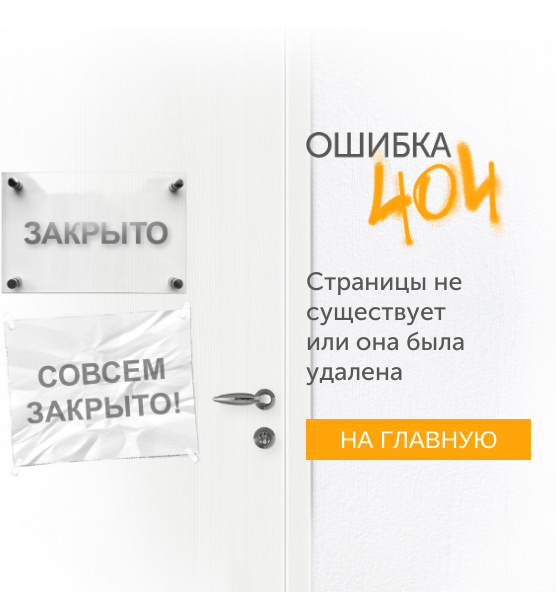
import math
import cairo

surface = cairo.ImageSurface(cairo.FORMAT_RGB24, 556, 592)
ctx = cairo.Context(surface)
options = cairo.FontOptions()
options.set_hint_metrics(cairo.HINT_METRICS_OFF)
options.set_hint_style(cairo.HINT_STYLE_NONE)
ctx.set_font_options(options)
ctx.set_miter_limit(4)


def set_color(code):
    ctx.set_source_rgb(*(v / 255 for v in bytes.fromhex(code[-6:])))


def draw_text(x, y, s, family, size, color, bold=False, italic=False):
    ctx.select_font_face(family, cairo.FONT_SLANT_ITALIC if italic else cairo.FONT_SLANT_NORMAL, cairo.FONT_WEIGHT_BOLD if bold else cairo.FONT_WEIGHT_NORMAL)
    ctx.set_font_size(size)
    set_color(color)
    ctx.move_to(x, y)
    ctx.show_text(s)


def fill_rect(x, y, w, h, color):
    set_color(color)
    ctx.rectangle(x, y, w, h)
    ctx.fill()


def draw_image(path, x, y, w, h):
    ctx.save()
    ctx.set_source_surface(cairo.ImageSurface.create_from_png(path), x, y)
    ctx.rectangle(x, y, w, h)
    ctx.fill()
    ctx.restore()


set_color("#ffffff")
ctx.paint()
draw_image("assets/img1.png", 0, 26, 556, 566)
draw_image("assets/img2.png", 306, 132, 200, 117)
draw_text(306, 290, "Страницы не", "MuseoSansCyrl", 25, "#575756")
draw_text(306, 320, "существует", "MuseoSansCyrl", 25, "#575756")
draw_text(306, 350, "или она была", "MuseoSansCyrl", 25, "#575756")
draw_text(306, 380, "удалена", "MuseoSansCyrl", 25, "#575756")
fill_rect(306, 419, 225, 41, "#ffa409")
draw_text(340, 448, "НА ГЛАВНУЮ", "Liberation Sans", 24, "#ffffff")
surface.write_to_png("output.png")
